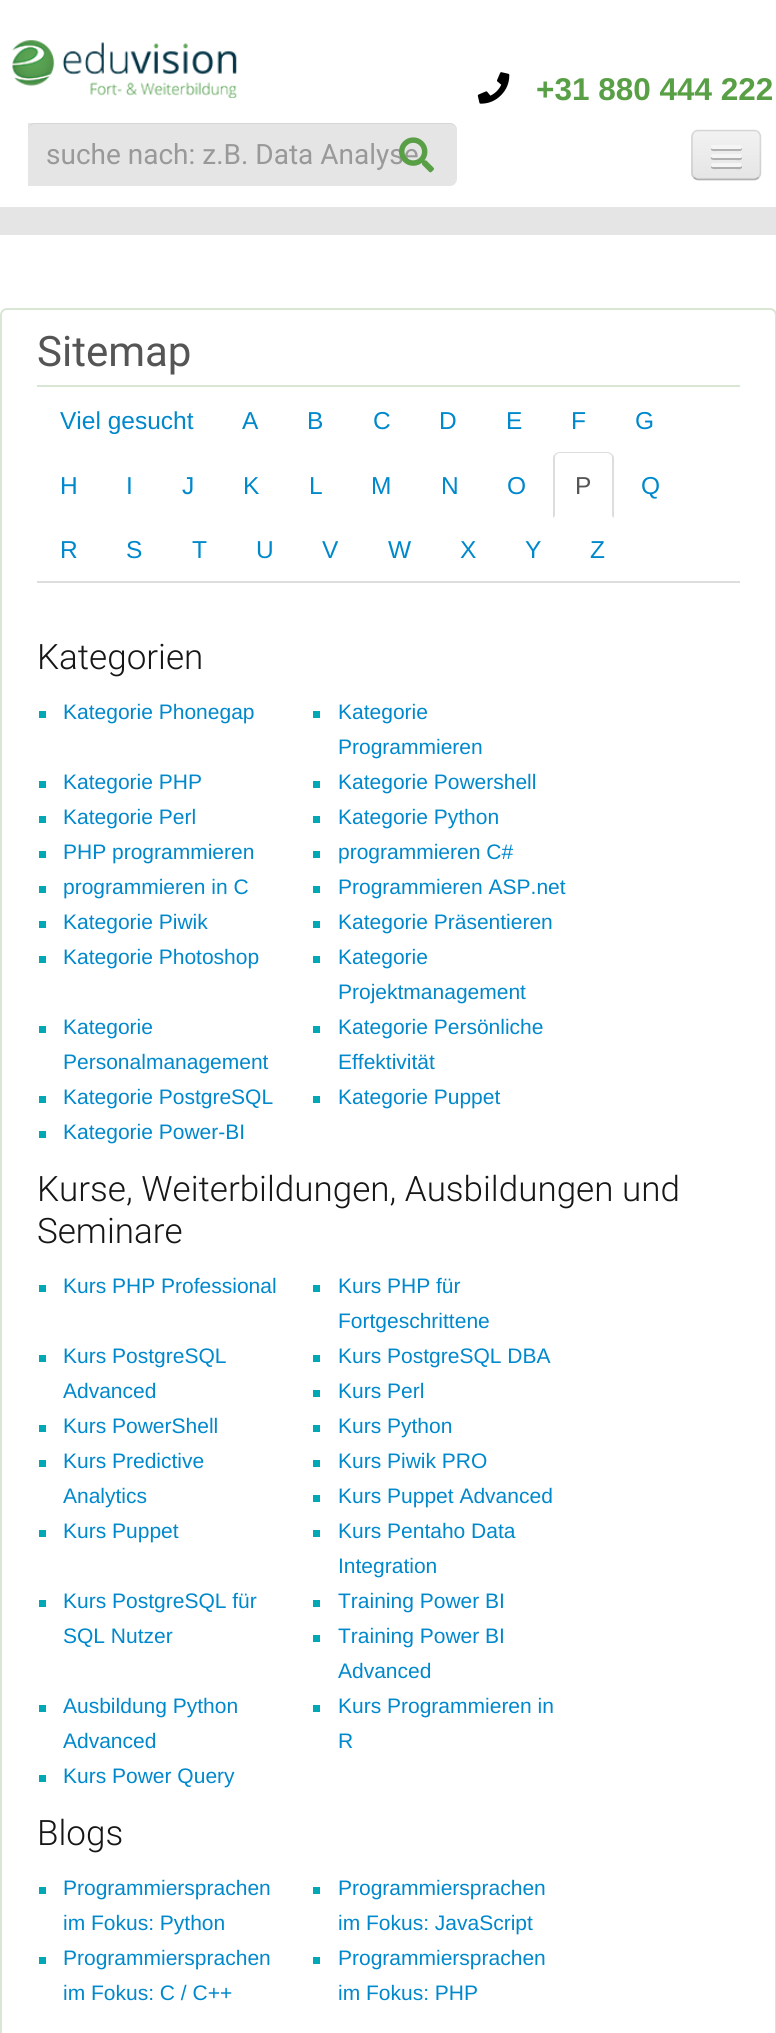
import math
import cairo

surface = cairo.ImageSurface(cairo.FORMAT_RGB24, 776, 2033)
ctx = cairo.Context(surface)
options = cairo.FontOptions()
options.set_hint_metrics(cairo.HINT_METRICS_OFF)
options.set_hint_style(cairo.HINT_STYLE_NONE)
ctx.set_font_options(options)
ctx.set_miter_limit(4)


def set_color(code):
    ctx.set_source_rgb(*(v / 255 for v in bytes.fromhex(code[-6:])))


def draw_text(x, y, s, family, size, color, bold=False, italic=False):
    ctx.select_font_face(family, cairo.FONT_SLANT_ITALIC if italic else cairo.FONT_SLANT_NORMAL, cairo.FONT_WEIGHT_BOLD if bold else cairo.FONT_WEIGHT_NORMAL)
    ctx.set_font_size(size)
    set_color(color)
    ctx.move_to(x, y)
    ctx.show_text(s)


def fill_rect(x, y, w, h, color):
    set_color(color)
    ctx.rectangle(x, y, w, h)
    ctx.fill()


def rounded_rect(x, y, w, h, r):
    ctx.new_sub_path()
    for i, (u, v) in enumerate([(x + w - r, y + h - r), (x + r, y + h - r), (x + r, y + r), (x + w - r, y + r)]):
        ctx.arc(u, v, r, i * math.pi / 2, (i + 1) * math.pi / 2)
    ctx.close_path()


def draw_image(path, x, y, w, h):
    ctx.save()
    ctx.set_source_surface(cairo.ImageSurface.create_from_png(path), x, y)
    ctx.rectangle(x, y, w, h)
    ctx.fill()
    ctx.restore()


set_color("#ffffff")
ctx.paint()
draw_image("assets/img1.png", 12, 40, 225, 58)
draw_image("assets/img2.png", 477, 72, 33, 32)
draw_text(536, 100, "+31 880 444 222", "Liberation Sans", 31.5, "#599f46", bold=True)
fill_rect(28, 123, 7, 63, "#e5e5e5")
rounded_rect(28, 123, 429, 63, 7)
ctx.fill()
draw_text(46, 164, "suche nach: z.B. Data Analyse", "Roboto", 28, "#999999")
draw_image("assets/img3.png", 399, 137, 35, 36)
ctx.set_source_rgba(0, 0, 0, 0.07)
ctx.new_path()
ctx.move_to(35, 124)
ctx.line_to(450, 124)
ctx.curve_to(454, 124, 457, 127, 457, 131)
ctx.curve_to(457, 127, 455, 123, 450, 123)
ctx.line_to(35, 123)
ctx.curve_to(30, 123, 28, 127, 28, 131)
ctx.curve_to(28, 127, 31, 124, 35, 124)
ctx.close_path()
ctx.fill()
fill_rect(0, 207, 776, 28, "#e5e5e5")
set_color("#ededed")
rounded_rect(691, 130, 70, 50, 7)
ctx.fill()
ctx.save()
rounded_rect(691, 130, 70, 50, 7)
ctx.clip()
gradient = cairo.LinearGradient(726, 131, 726, 179)
gradient.add_color_stop_rgba(0, 0.949, 0.949, 0.949, 1)
gradient.add_color_stop_rgba(1, 0.898, 0.898, 0.898, 1)
ctx.set_source(gradient)
ctx.rectangle(691, 131, 70, 48)
ctx.fill()
ctx.restore()
ctx.new_path()
ctx.move_to(758.5, 177.5)
ctx.curve_to(757.5, 178.5, 756, 179.5, 754, 179.5)
ctx.line_to(698, 179.5)
ctx.curve_to(696.5, 179.5, 695, 178.5, 694, 177.5)
ctx.set_source_rgba(0, 0, 0, 0.25)
ctx.set_line_width(1.8)
ctx.stroke()
ctx.new_path()
ctx.move_to(694, 177.5)
ctx.curve_to(693, 176.5, 692, 175, 692, 173)
ctx.line_to(692, 136.5)
ctx.curve_to(692, 135, 693, 133.5, 694, 132)
ctx.curve_to(695, 131, 696.5, 130.5, 698, 130.5)
ctx.line_to(754, 130.5)
ctx.curve_to(756, 130.5, 757.5, 131, 758.5, 132)
ctx.curve_to(759.5, 133.5, 760.5, 135, 760.5, 136.5)
ctx.line_to(760.5, 173)
ctx.curve_to(760.5, 175, 759.5, 176.5, 758.5, 177.5)
ctx.set_source_rgba(0, 0, 0, 0.1)
ctx.stroke()
set_color("#b2b2b2")
ctx.new_path()
ctx.move_to(711, 148.5)
ctx.curve_to(710, 152, 716.5, 151, 717.5, 151)
ctx.line_to(735.5, 151)
ctx.curve_to(736, 151, 744, 152, 741.5, 148)
ctx.line_to(740.5, 148.5)
ctx.line_to(712, 148.5)
ctx.close_path()
ctx.fill()
set_color("#f5f5f5")
rounded_rect(711, 145, 31, 4, 2)
ctx.fill()
set_color("#b0b0b0")
ctx.new_path()
ctx.move_to(711, 157)
ctx.curve_to(709.5, 161, 716.5, 160, 717.5, 160)
ctx.line_to(735.5, 160)
ctx.curve_to(736.5, 160, 741.5, 161, 742, 158.5)
ctx.line_to(741.5, 157)
ctx.line_to(740.5, 157.5)
ctx.curve_to(738, 158, 712, 158, 711, 157)
ctx.close_path()
ctx.fill()
set_color("#f5f5f5")
rounded_rect(711, 154, 31, 4, 2)
ctx.fill()
set_color("#aeaeae")
ctx.new_path()
ctx.move_to(711.5, 166)
ctx.curve_to(709, 170, 717, 169, 717.5, 169)
ctx.line_to(735.5, 169)
ctx.curve_to(736.5, 169, 741.5, 170, 742, 167.5)
ctx.curve_to(742, 167, 742, 166, 741.5, 165.5)
ctx.line_to(740.5, 166)
ctx.curve_to(738, 166.5, 712, 166.5, 711.5, 166)
ctx.close_path()
ctx.fill()
set_color("#f5f5f5")
rounded_rect(711, 163, 31, 4, 2)
ctx.fill()
rounded_rect(1, 309, 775, 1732, 6)
set_color("#dae6d4")
ctx.set_line_width(2)
ctx.stroke()
fill_rect(37, 385, 703, 2, "#dae6d4")
draw_text(37, 366, "Sitemap", "Roboto", 42, "#555555")
fill_rect(37, 581, 703, 2, "#dddddd")
draw_text(60, 429, "Viel gesucht", "Liberation Sans", 24.5, "#0088cc")
draw_text(242, 429, "A", "Liberation Sans", 24.5, "#0088cc")
draw_text(307, 429, "B", "Liberation Sans", 24.5, "#0088cc")
draw_text(373, 429, "C", "Liberation Sans", 24.5, "#0088cc")
draw_text(439, 429, "D", "Liberation Sans", 24.5, "#0088cc")
draw_text(506, 429, "E", "Liberation Sans", 24.5, "#0088cc")
draw_text(571, 429, "F", "Liberation Sans", 24.5, "#0088cc")
draw_text(635, 429, "G", "Liberation Sans", 24.5, "#0088cc")
draw_text(60, 494, "H", "Liberation Sans", 24.5, "#0088cc")
draw_text(126, 494, "I", "Liberation Sans", 24.5, "#0088cc")
draw_text(182, 494, "J", "Liberation Sans", 24.5, "#0088cc")
draw_text(243, 494, "K", "Liberation Sans", 24.5, "#0088cc")
draw_text(309, 494, "L", "Liberation Sans", 24.5, "#0088cc")
draw_text(371, 494, "M", "Liberation Sans", 24.5, "#0088cc")
draw_text(441, 494, "N", "Liberation Sans", 24.5, "#0088cc")
draw_text(507, 494, "O", "Liberation Sans", 24.5, "#0088cc")
set_color("#dddddd")
ctx.new_path()
ctx.move_to(560, 452)
ctx.curve_to(558, 452, 556, 453, 555, 454)
ctx.line_to(556, 455)
ctx.curve_to(557, 454, 558, 453, 560, 453)
ctx.line_to(607, 453)
ctx.curve_to(609, 453, 610, 454, 611, 455)
ctx.line_to(612, 454)
ctx.curve_to(611, 453, 609, 452, 607, 452)
ctx.close_path()
ctx.fill()
ctx.new_path()
ctx.move_to(614, 518)
ctx.line_to(614, 458)
ctx.curve_to(614, 456, 613, 455, 612, 454)
ctx.line_to(611, 455)
ctx.curve_to(612, 456, 612, 457, 612, 458)
ctx.line_to(612, 516)
ctx.close_path()
ctx.fill()
ctx.new_path()
ctx.move_to(553, 518)
ctx.line_to(555, 516)
ctx.line_to(555, 458)
ctx.curve_to(555, 457, 555, 456, 556, 455)
ctx.line_to(555, 454)
ctx.curve_to(554, 455, 553, 456, 553, 458)
ctx.close_path()
ctx.fill()
draw_text(575, 494, "P", "Liberation Sans", 24.5, "#555555")
draw_text(641, 494, "Q", "Liberation Sans", 24.5, "#0088cc")
draw_text(60, 558, "R", "Liberation Sans", 24.5, "#0088cc")
draw_text(126, 558, "S", "Liberation Sans", 24.5, "#0088cc")
draw_text(192, 558, "T", "Liberation Sans", 24.5, "#0088cc")
draw_text(256, 558, "U", "Liberation Sans", 24.5, "#0088cc")
draw_text(322, 558, "V", "Liberation Sans", 24.5, "#0088cc")
draw_text(388, 558, "W", "Liberation Sans", 24.5, "#0088cc")
draw_text(460, 558, "X", "Liberation Sans", 24.5, "#0088cc")
draw_text(525, 558, "Y", "Liberation Sans", 24.5, "#0088cc")
draw_text(590, 558, "Z", "Liberation Sans", 24.5, "#0088cc")
draw_text(37, 669, "Kategorien", "Roboto Light", 35, "#161616")
fill_rect(39, 711, 7, 7, "#00a8b5")
draw_text(63, 719, "Kategorie Phonegap", "Liberation Sans", 21, "#0088cc")
fill_rect(313, 711, 7, 7, "#00a8b5")
draw_text(338, 719, "Kategorie", "Liberation Sans", 21, "#0088cc")
draw_text(338, 754, "Programmieren", "Liberation Sans", 21, "#0088cc")
fill_rect(39, 781, 7, 7, "#00a8b5")
draw_text(63, 789, "Kategorie PHP", "Liberation Sans", 21, "#0088cc")
fill_rect(313, 781, 7, 7, "#00a8b5")
draw_text(338, 789, "Kategorie Powershell", "Liberation Sans", 21, "#0088cc")
fill_rect(39, 816, 7, 7, "#00a8b5")
draw_text(63, 824, "Kategorie Perl", "Liberation Sans", 21, "#0088cc")
fill_rect(313, 816, 7, 7, "#00a8b5")
draw_text(338, 824, "Kategorie Python", "Liberation Sans", 21, "#0088cc")
fill_rect(39, 851, 7, 7, "#00a8b5")
draw_text(63, 859, "PHP programmieren", "Liberation Sans", 21, "#0088cc")
fill_rect(313, 851, 7, 7, "#00a8b5")
draw_text(338, 859, "programmieren C#", "Liberation Sans", 21, "#0088cc")
fill_rect(39, 886, 7, 7, "#00a8b5")
draw_text(63, 894, "programmieren in C", "Liberation Sans", 21, "#0088cc")
fill_rect(313, 886, 7, 7, "#00a8b5")
draw_text(338, 894, "Programmieren ASP.net", "Liberation Sans", 21, "#0088cc")
fill_rect(39, 921, 7, 7, "#00a8b5")
draw_text(63, 929, "Kategorie Piwik", "Liberation Sans", 21, "#0088cc")
fill_rect(313, 921, 7, 7, "#00a8b5")
draw_text(338, 929, "Kategorie Präsentieren", "Liberation Sans", 21, "#0088cc")
fill_rect(39, 956, 7, 7, "#00a8b5")
draw_text(63, 964, "Kategorie Photoshop", "Liberation Sans", 21, "#0088cc")
fill_rect(313, 956, 7, 7, "#00a8b5")
draw_text(338, 964, "Kategorie", "Liberation Sans", 21, "#0088cc")
draw_text(338, 999, "Projektmanagement", "Liberation Sans", 21, "#0088cc")
fill_rect(39, 1026, 7, 7, "#00a8b5")
draw_text(63, 1034, "Kategorie", "Liberation Sans", 21, "#0088cc")
draw_text(63, 1069, "Personalmanagement", "Liberation Sans", 21, "#0088cc")
fill_rect(313, 1026, 7, 7, "#00a8b5")
draw_text(338, 1034, "Kategorie Persönliche", "Liberation Sans", 21, "#0088cc")
draw_text(338, 1069, "Effektivität", "Liberation Sans", 21, "#0088cc")
fill_rect(39, 1096, 7, 7, "#00a8b5")
draw_text(63, 1104, "Kategorie PostgreSQL", "Liberation Sans", 21, "#0088cc")
fill_rect(313, 1096, 7, 7, "#00a8b5")
draw_text(338, 1104, "Kategorie Puppet", "Liberation Sans", 21, "#0088cc")
fill_rect(39, 1131, 7, 7, "#00a8b5")
draw_text(63, 1139, "Kategorie Power-BI", "Liberation Sans", 21, "#0088cc")
draw_text(37, 1201, "Kurse, Weiterbildungen, Ausbildungen und", "Roboto Light", 35, "#161616")
draw_text(37, 1243, "Seminare", "Roboto Light", 35, "#161616")
fill_rect(39, 1285, 7, 7, "#00a8b5")
draw_text(63, 1293, "Kurs PHP Professional", "Liberation Sans", 21, "#0088cc")
fill_rect(313, 1285, 7, 7, "#00a8b5")
draw_text(338, 1293, "Kurs PHP für", "Liberation Sans", 21, "#0088cc")
draw_text(338, 1328, "Fortgeschrittene", "Liberation Sans", 21, "#0088cc")
fill_rect(39, 1355, 7, 7, "#00a8b5")
draw_text(63, 1363, "Kurs PostgreSQL", "Liberation Sans", 21, "#0088cc")
draw_text(63, 1398, "Advanced", "Liberation Sans", 21, "#0088cc")
fill_rect(313, 1355, 7, 7, "#00a8b5")
draw_text(338, 1363, "Kurs PostgreSQL DBA", "Liberation Sans", 21, "#0088cc")
fill_rect(313, 1390, 7, 7, "#00a8b5")
draw_text(338, 1398, "Kurs Perl", "Liberation Sans", 21, "#0088cc")
fill_rect(39, 1425, 7, 7, "#00a8b5")
draw_text(63, 1433, "Kurs PowerShell", "Liberation Sans", 21, "#0088cc")
fill_rect(313, 1425, 7, 7, "#00a8b5")
draw_text(338, 1433, "Kurs Python", "Liberation Sans", 21, "#0088cc")
fill_rect(39, 1460, 7, 7, "#00a8b5")
draw_text(63, 1468, "Kurs Predictive", "Liberation Sans", 21, "#0088cc")
draw_text(63, 1503, "Analytics", "Liberation Sans", 21, "#0088cc")
fill_rect(313, 1460, 7, 7, "#00a8b5")
draw_text(338, 1468, "Kurs Piwik PRO", "Liberation Sans", 21, "#0088cc")
fill_rect(313, 1495, 7, 7, "#00a8b5")
draw_text(338, 1503, "Kurs Puppet Advanced", "Liberation Sans", 21, "#0088cc")
fill_rect(39, 1530, 7, 7, "#00a8b5")
draw_text(63, 1538, "Kurs Puppet", "Liberation Sans", 21, "#0088cc")
fill_rect(313, 1530, 7, 7, "#00a8b5")
draw_text(338, 1538, "Kurs Pentaho Data", "Liberation Sans", 21, "#0088cc")
draw_text(338, 1573, "Integration", "Liberation Sans", 21, "#0088cc")
fill_rect(39, 1600, 7, 7, "#00a8b5")
draw_text(63, 1608, "Kurs PostgreSQL für", "Liberation Sans", 21, "#0088cc")
draw_text(63, 1643, "SQL Nutzer", "Liberation Sans", 21, "#0088cc")
fill_rect(313, 1600, 7, 7, "#00a8b5")
draw_text(338, 1608, "Training Power BI", "Liberation Sans", 21, "#0088cc")
fill_rect(313, 1635, 7, 7, "#00a8b5")
draw_text(338, 1643, "Training Power BI", "Liberation Sans", 21, "#0088cc")
draw_text(338, 1678, "Advanced", "Liberation Sans", 21, "#0088cc")
fill_rect(39, 1705, 7, 7, "#00a8b5")
draw_text(63, 1713, "Ausbildung Python", "Liberation Sans", 21, "#0088cc")
draw_text(63, 1748, "Advanced", "Liberation Sans", 21, "#0088cc")
fill_rect(313, 1705, 7, 7, "#00a8b5")
draw_text(338, 1713, "Kurs Programmieren in", "Liberation Sans", 21, "#0088cc")
draw_text(338, 1748, "R", "Liberation Sans", 21, "#0088cc")
fill_rect(39, 1775, 7, 7, "#00a8b5")
draw_text(63, 1783, "Kurs Power Query", "Liberation Sans", 21, "#0088cc")
draw_text(37, 1845, "Blogs", "Roboto Light", 35, "#161616")
fill_rect(39, 1887, 7, 7, "#00a8b5")
draw_text(63, 1895, "Programmiersprachen", "Liberation Sans", 21, "#0088cc")
draw_text(63, 1930, "im Fokus: Python", "Liberation Sans", 21, "#0088cc")
fill_rect(313, 1887, 7, 7, "#00a8b5")
draw_text(338, 1895, "Programmiersprachen", "Liberation Sans", 21, "#0088cc")
draw_text(338, 1930, "im Fokus: JavaScript", "Liberation Sans", 21, "#0088cc")
fill_rect(39, 1957, 7, 7, "#00a8b5")
draw_text(63, 1965, "Programmiersprachen", "Liberation Sans", 21, "#0088cc")
draw_text(63, 2000, "im Fokus: C / C++", "Liberation Sans", 21, "#0088cc")
fill_rect(313, 1957, 7, 7, "#00a8b5")
draw_text(338, 1965, "Programmiersprachen", "Liberation Sans", 21, "#0088cc")
draw_text(338, 2000, "im Fokus: PHP", "Liberation Sans", 21, "#0088cc")
surface.write_to_png("output.png")
